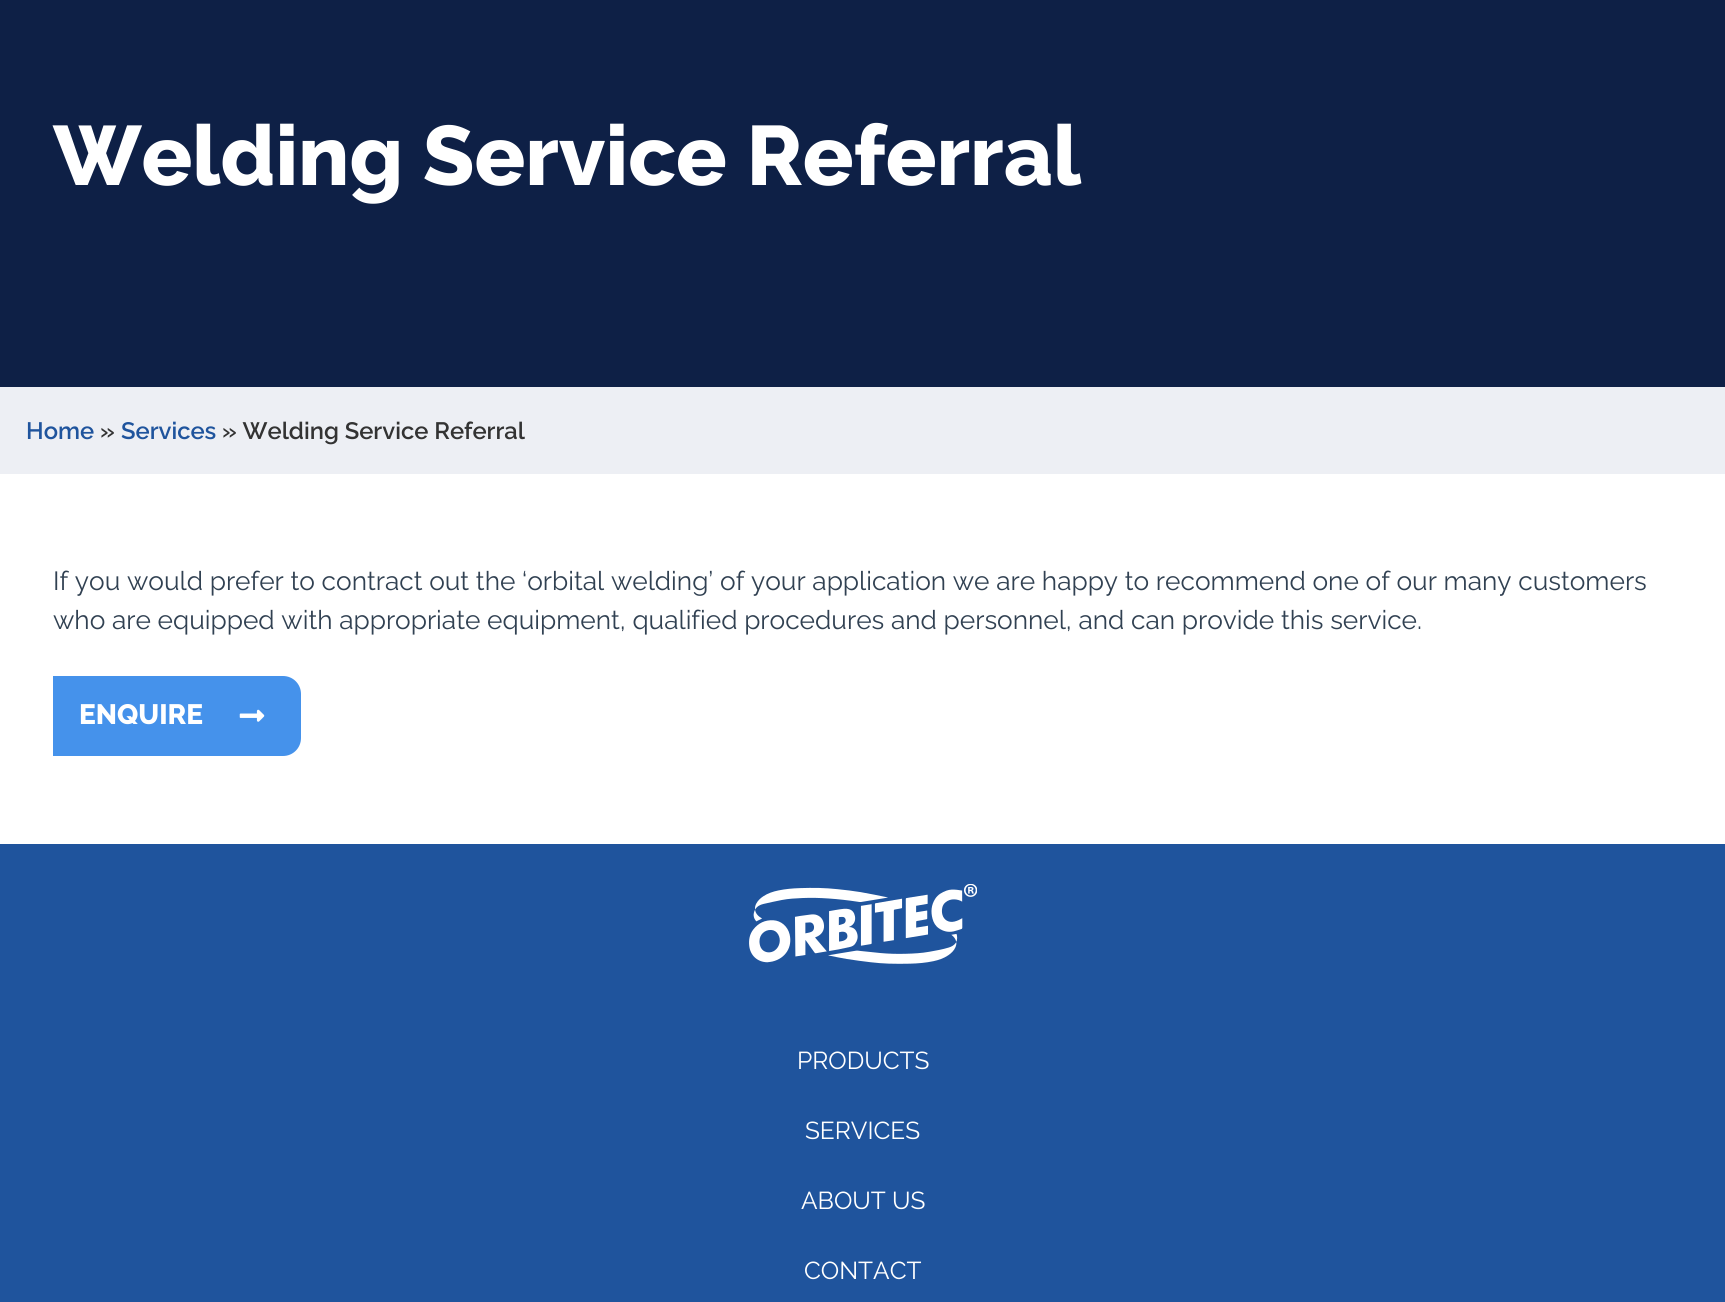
import math
import cairo

surface = cairo.ImageSurface(cairo.FORMAT_RGB24, 1725, 1302)
ctx = cairo.Context(surface)
options = cairo.FontOptions()
options.set_hint_metrics(cairo.HINT_METRICS_OFF)
options.set_hint_style(cairo.HINT_STYLE_NONE)
ctx.set_font_options(options)
ctx.set_miter_limit(4)


def set_color(code):
    ctx.set_source_rgb(*(v / 255 for v in bytes.fromhex(code[-6:])))


def draw_text(x, y, s, family, size, color, bold=False, italic=False):
    ctx.select_font_face(family, cairo.FONT_SLANT_ITALIC if italic else cairo.FONT_SLANT_NORMAL, cairo.FONT_WEIGHT_BOLD if bold else cairo.FONT_WEIGHT_NORMAL)
    ctx.set_font_size(size)
    set_color(color)
    ctx.move_to(x, y)
    ctx.show_text(s)


def fill_rect(x, y, w, h, color):
    set_color(color)
    ctx.rectangle(x, y, w, h)
    ctx.fill()


def draw_image(path, x, y, w, h):
    ctx.save()
    ctx.set_source_surface(cairo.ImageSurface.create_from_png(path), x, y)
    ctx.rectangle(x, y, w, h)
    ctx.fill()
    ctx.restore()


set_color("#ffffff")
ctx.paint()
fill_rect(0, 0, 1725, 387, "#0e2046")
draw_text(53, 185, "Welding Service Referral", "Raleway ExtraBold", 84, "#ffffff")
fill_rect(0, 387, 1725, 87, "#edeff4")
draw_text(26, 439, "Home", "Raleway SemiBold", 23.75, "#1f549d")
draw_text(100, 439, "»", "Raleway SemiBold", 23.75, "#333333")
draw_text(121, 439, "Services", "Raleway SemiBold", 23.75, "#1f549d")
draw_text(222, 439, "» Welding Service Referral", "Raleway SemiBold", 23.75, "#333333")
draw_text(53, 590, "If you would prefer to contract out the ‘orbital welding’ of your application we are happy to recommend one of our many customers", "Raleway", 26.25, "#314152")
draw_text(53, 629, "who are equipped with appropriate equipment, qualified procedures and personnel, and can provide this service.", "Raleway", 26.25, "#314152")
set_color("#4592eb")
ctx.new_path()
ctx.move_to(53, 676)
ctx.line_to(283, 676)
ctx.curve_to(293, 676, 301, 684, 301, 694)
ctx.line_to(301, 738)
ctx.curve_to(301, 748, 293, 756, 283, 756)
ctx.line_to(53, 756)
ctx.close_path()
ctx.fill()
draw_text(79, 724, "ENQUIRE", "Raleway ExtraBold", 28, "#ffffff")
draw_image("assets/img1.png", 239, 709, 26, 13)
fill_rect(0, 844, 1725, 458, "#1f549d")
draw_image("assets/img2.png", 749, 884, 228, 80)
draw_text(797, 1069, "PRODUCTS", "Raleway", 24.5, "#ffffff")
draw_text(805, 1139, "SERVICES", "Raleway", 24.5, "#ffffff")
draw_text(801, 1209, "ABOUT US", "Raleway", 24.5, "#ffffff")
draw_text(804, 1279, "CONTACT", "Raleway", 24.5, "#ffffff")
surface.write_to_png("output.png")
